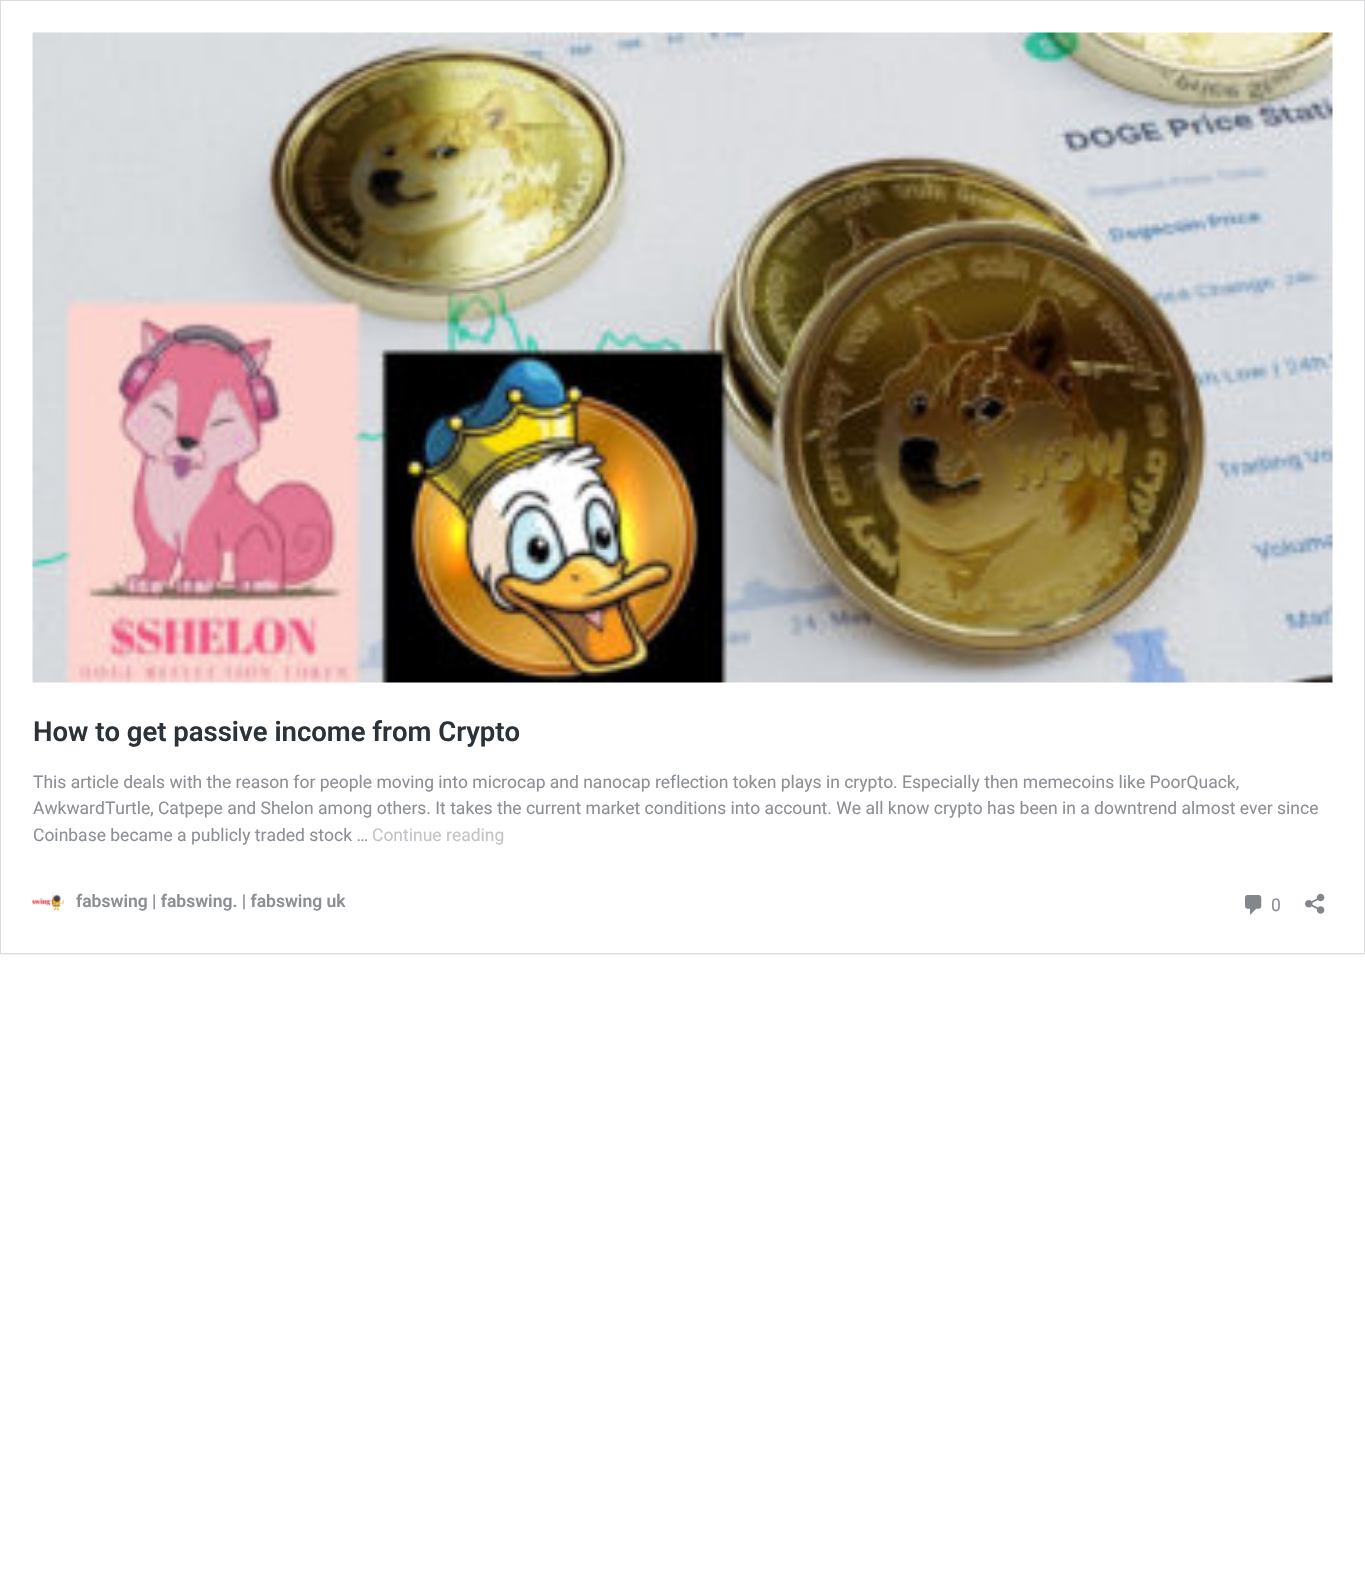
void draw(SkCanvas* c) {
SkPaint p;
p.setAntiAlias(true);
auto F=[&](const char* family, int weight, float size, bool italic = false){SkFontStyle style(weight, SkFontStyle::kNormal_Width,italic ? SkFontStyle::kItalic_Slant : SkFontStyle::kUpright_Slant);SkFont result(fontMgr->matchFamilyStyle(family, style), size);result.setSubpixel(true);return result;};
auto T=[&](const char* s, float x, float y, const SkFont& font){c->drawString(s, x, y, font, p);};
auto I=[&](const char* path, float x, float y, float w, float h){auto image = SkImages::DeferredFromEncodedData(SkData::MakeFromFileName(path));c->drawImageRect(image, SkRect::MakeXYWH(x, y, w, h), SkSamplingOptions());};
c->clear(0xffffffff);
p.setColor(0x0d000000);
p.setMaskFilter(SkMaskFilter::MakeBlur(kNormal_SkBlurStyle, .5));
c->drawRect(SkRect::MakeXYWH(0,1,1365,954),p);
p.setMaskFilter(nullptr);
p.setColor(0xffffffff);
c->drawRect(SkRect::MakeXYWH(.5,.5,1364,953),p);
p.setStroke(true);
p.setStrokeWidth(1);
p.setColor(0xffdcdcde);
c->drawRect(SkRect::MakeXYWH(.5,.5,1364,953),p);
I("1.png",32,32,1301,651);
auto f1 = F("Roboto",600,27.5);
p.setStroke(false);
p.setColor(0xff2c3338);
T("How to get passive income from Crypto",33,741,f1);
auto f2 = F("Roboto",400,17.5);
p.setColor(0xff8c8f94);
T("This article deals with the reason for people moving into microcap and nanocap reflection token plays in crypto. Especially then memecoins like PoorQuack,",33,788,f2);
T("AwkwardTurtle, Catpepe and Shelon among others. It takes the current market conditions into account. We all know crypto has been in a downtrend almost ever since",33,814,f2);
T("Coinbase became a publicly traded stock …",33,841,f2);
p.setColor(0xffc3c4c7);
T("Continue reading",372,841,f2);
I("2.png",32,893,32,18);
auto f3 = F("Roboto",600,17.5);
p.setColor(0xff8c8f94);
T("fabswing | fabswing. | fabswing uk",76,907,f3);
I("3.png",1245,895,17,20);
T("0",1271,911,f2);
I("4.png",1305,893,20,21);
}
